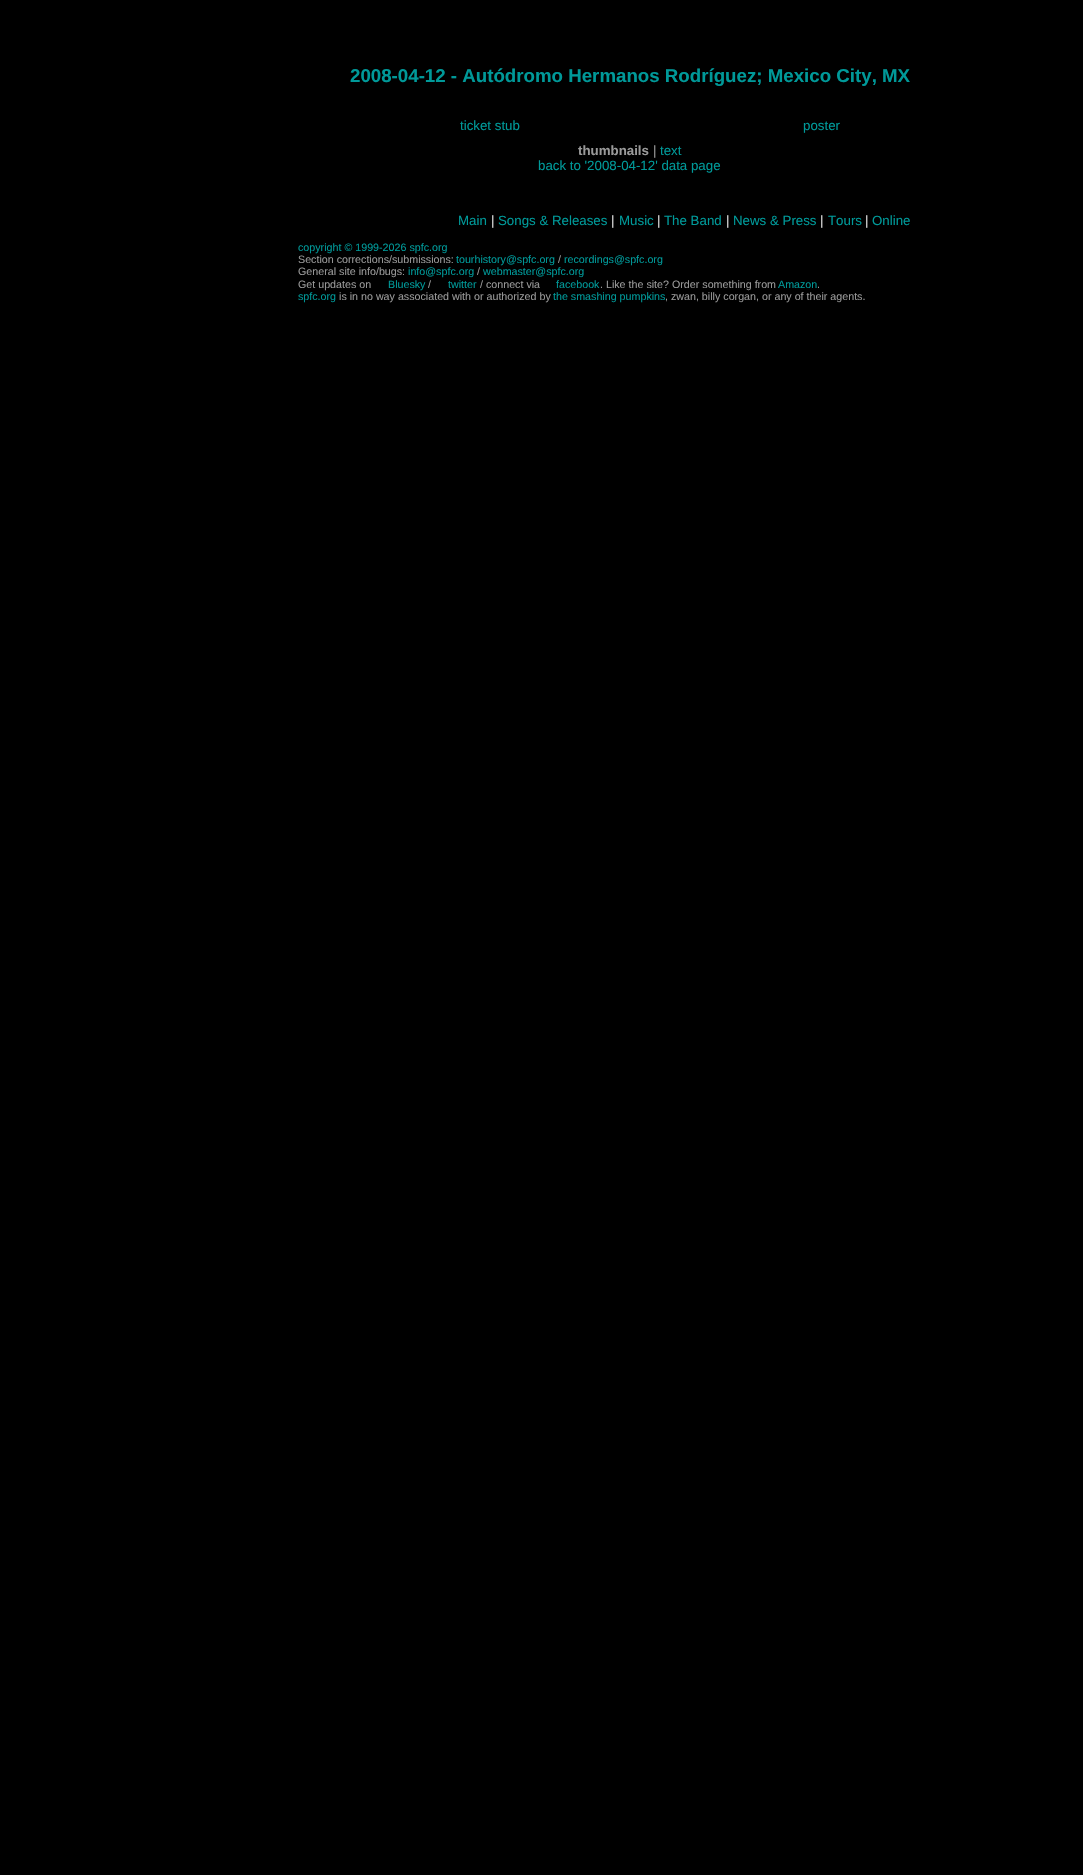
void draw(SkCanvas* c) {
SkPaint p;
p.setAntiAlias(true);
auto F=[&](const char* family, int weight, float size, bool italic = false){SkFontStyle style(weight, SkFontStyle::kNormal_Width,italic ? SkFontStyle::kItalic_Slant : SkFontStyle::kUpright_Slant);SkFont result(fontMgr->matchFamilyStyle(family, style), size);result.setSubpixel(true);return result;};
auto T=[&](const char* s, float x, float y, const SkFont& font){c->drawString(s, x, y, font, p);};
c->clear(0xff000000);
auto f1 = F("Liberation Sans",700,18.7);
p.setColor(0xff009999);
T("2008-04-12 - Autódromo Hermanos Rodríguez; Mexico City, MX",350,82,f1);
auto f2 = F("Liberation Sans",400,13.3);
T("ticket stub",460,130,f2);
T("poster",803,130,f2);
auto f3 = F("Liberation Sans",700,13.3);
p.setColor(0xff999999);
T("thumbnails",578,155,f3);
T("|",653,155,f2);
p.setColor(0xff009999);
T("text",660,155,f2);
T("back to '2008-04-12' data page",538,170,f2);
T("Main",458,225,f2);
p.setColor(0xffdddddd);
T("|",491,225,f2);
p.setColor(0xff009999);
T("Songs & Releases",498,225,f2);
p.setColor(0xffdddddd);
T("|",611,225,f2);
p.setColor(0xff009999);
T("Music",619,225,f2);
p.setColor(0xffdddddd);
T("|",657,225,f2);
p.setColor(0xff009999);
T("The Band",664,225,f2);
p.setColor(0xffdddddd);
T("|",726,225,f2);
p.setColor(0xff009999);
T("News & Press",733,225,f2);
p.setColor(0xffdddddd);
T("|",820,225,f2);
p.setColor(0xff009999);
T("Tours",828,225,f2);
p.setColor(0xffdddddd);
T("|",865,225,f2);
p.setColor(0xff009999);
T("Online",872,225,f2);
auto f4 = F("Liberation Sans",400,10.7);
T("copyright © 1999-2026 spfc.org",298,251,f4);
p.setColor(0xff999999);
T("Section corrections/submissions:",298,263,f4);
p.setColor(0xff009999);
T("tourhistory@spfc.org",456,263,f4);
p.setColor(0xff999999);
T("/",558,263,f4);
p.setColor(0xff009999);
T("recordings@spfc.org",564,263,f4);
p.setColor(0xff999999);
T("General site info/bugs:",298,275,f4);
p.setColor(0xff009999);
T("info@spfc.org",408,275,f4);
p.setColor(0xff999999);
T("/",477,275,f4);
p.setColor(0xff009999);
T("webmaster@spfc.org",483,275,f4);
p.setColor(0xff999999);
T("Get updates on",298,288,f4);
p.setColor(0xff009999);
T("Bluesky",388,288,f4);
p.setColor(0xff999999);
T("/",428,288,f4);
p.setColor(0xff009999);
T("twitter",448,288,f4);
p.setColor(0xff999999);
T("/ connect via",480,288,f4);
p.setColor(0xff009999);
T("facebook",556,288,f4);
p.setColor(0xff999999);
T(". Like the site? Order something from",600,288,f4);
p.setColor(0xff009999);
T("Amazon",778,288,f4);
p.setColor(0xff999999);
T(".",817,288,f4);
p.setColor(0xff009999);
T("spfc.org",298,300,f4);
p.setColor(0xff999999);
T("is in no way associated with or authorized by",339,300,f4);
p.setColor(0xff009999);
T("the smashing pumpkins",553,300,f4);
p.setColor(0xff999999);
T(", zwan, billy corgan, or any of their agents.",665,300,f4);
}
